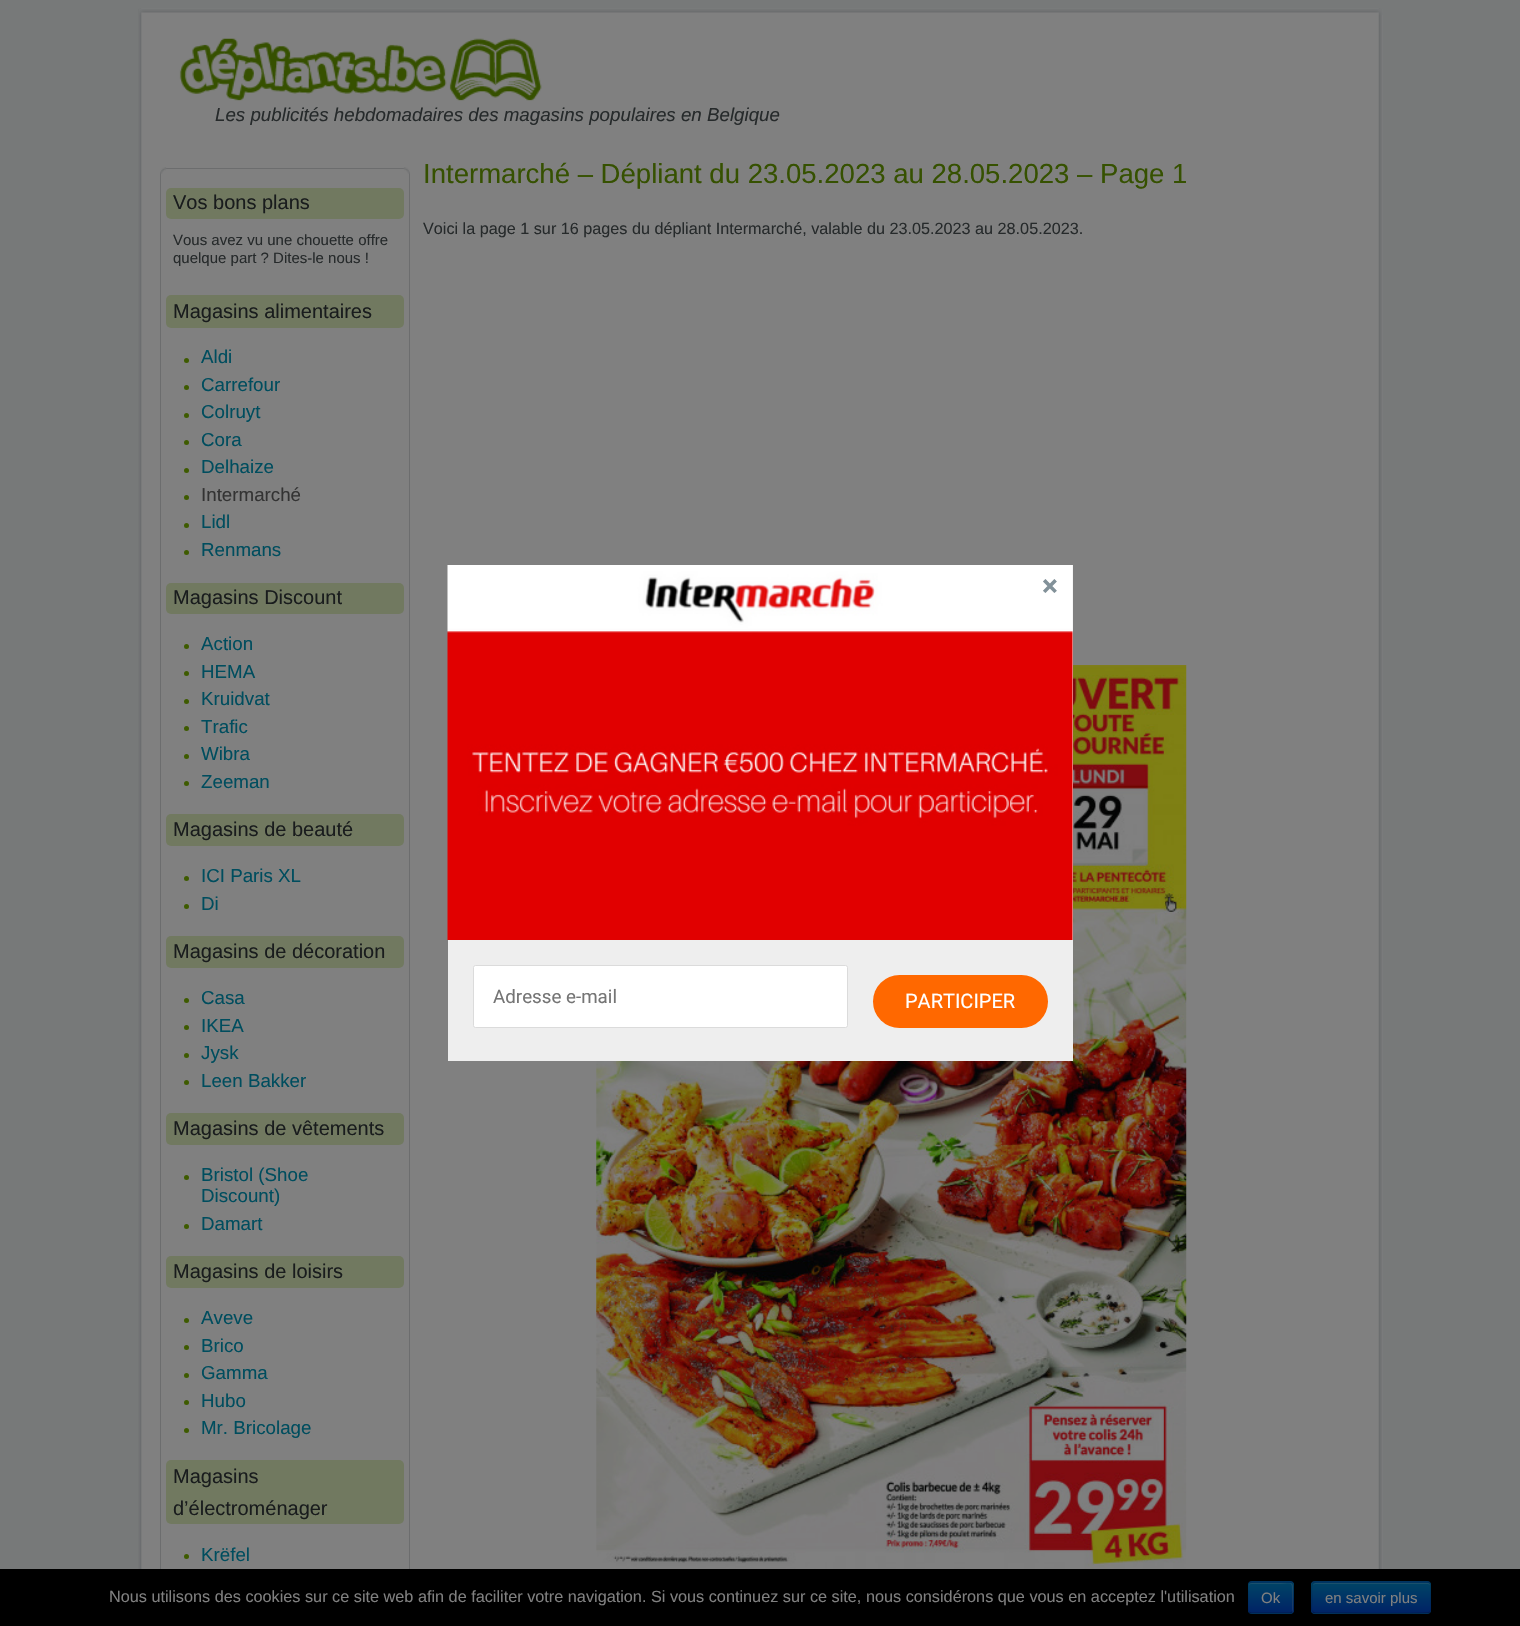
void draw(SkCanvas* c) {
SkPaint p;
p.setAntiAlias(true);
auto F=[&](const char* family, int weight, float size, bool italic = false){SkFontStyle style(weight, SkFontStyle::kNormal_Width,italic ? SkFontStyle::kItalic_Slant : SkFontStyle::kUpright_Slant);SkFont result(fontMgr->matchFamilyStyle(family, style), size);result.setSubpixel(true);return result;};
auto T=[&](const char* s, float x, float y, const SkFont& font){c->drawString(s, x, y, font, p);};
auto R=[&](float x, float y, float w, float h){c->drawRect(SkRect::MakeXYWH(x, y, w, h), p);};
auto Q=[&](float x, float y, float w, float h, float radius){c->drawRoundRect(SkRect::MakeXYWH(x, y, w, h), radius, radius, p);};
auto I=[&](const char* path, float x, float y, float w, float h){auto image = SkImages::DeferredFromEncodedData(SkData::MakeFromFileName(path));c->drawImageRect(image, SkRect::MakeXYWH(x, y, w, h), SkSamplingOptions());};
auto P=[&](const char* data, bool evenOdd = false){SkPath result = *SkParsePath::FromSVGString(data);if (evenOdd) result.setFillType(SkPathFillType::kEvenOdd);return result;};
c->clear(0xff777979);
p.setColor(0xff808080);
R(1382,9,1,1560);
I("1.png",138,8,1245,1561);
I("2.png",139,9,1244,6);
I("3.png",179,38,363,63);
auto f1 = F("Liberation Sans",400,18.75,true);
p.setColor(0xff262a2b);
T("Les publicités hebdomadaires des magasins populaires en Belgique",215,121,f1);
p.setStroke(true);
p.setStrokeWidth(1);
p.setColor(0xff6c6d6e);
c->drawRect(SkRect::MakeXYWH(160.5,168.5,249,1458),p);
I("4.png",160,167,7,7);
I("5.png",403,167,7,7);
p.setStroke(false);
p.setColor(0xff717960);
Q(166,188,238,31,5);
auto f2 = F("Liberation Sans",400,20);
p.setColor(0xff191c1d);
T("Vos bons plans",173,209,f2);
auto f3 = F("Liberation Sans",400,15);
p.setColor(0xff262a2b);
T("Vous avez vu une chouette offre",173,245,f3);
T("quelque part ? Dites-le nous !",173,263,f3);
p.setColor(0xff717960);
Q(166,295,238,33,5);
p.setColor(0xff191c1d);
T("Magasins alimentaires",173,318,f2);
p.setColor(0xff3e5b00);
c->drawCircle(186.5,360.5,2.5,p);
auto f4 = F("Liberation Sans",400,18.75);
p.setColor(0xff004d5e);
T("Aldi",201,363,f4);
p.setColor(0xff3e5b00);
c->drawCircle(186.5,387.5,2.5,p);
p.setColor(0xff004d5e);
T("Carrefour",201,391,f4);
p.setColor(0xff3e5b00);
c->drawCircle(186.5,415.5,2.5,p);
p.setColor(0xff004d5e);
T("Colruyt",201,418,f4);
p.setColor(0xff3e5b00);
c->drawCircle(186.5,442.5,2.5,p);
p.setColor(0xff004d5e);
T("Cora",201,446,f4);
p.setColor(0xff3e5b00);
c->drawCircle(186.5,470.5,2.5,p);
p.setColor(0xff004d5e);
T("Delhaize",201,473,f4);
p.setColor(0xff3e5b00);
c->drawCircle(186.5,497.5,2.5,p);
p.setColor(0xff333333);
T("Intermarché",201,501,f4);
p.setColor(0xff3e5b00);
c->drawCircle(186.5,525.5,2.5,p);
p.setColor(0xff004d5e);
T("Lidl",201,528,f4);
p.setColor(0xff3e5b00);
c->drawCircle(186.5,552.5,2.5,p);
p.setColor(0xff004d5e);
T("Renmans",201,556,f4);
p.setColor(0xff717960);
Q(166,583,238,31,5);
p.setColor(0xff191c1d);
T("Magasins Discount",173,604,f2);
p.setColor(0xff3e5b00);
c->drawCircle(186.5,646.5,2.5,p);
p.setColor(0xff004d5e);
T("Action",201,650,f4);
p.setColor(0xff3e5b00);
c->drawCircle(186.5,673.5,2.5,p);
p.setColor(0xff004d5e);
T("HEMA",201,678,f4);
p.setColor(0xff3e5b00);
c->drawCircle(186.5,701.5,2.5,p);
p.setColor(0xff004d5e);
T("Kruidvat",201,705,f4);
p.setColor(0xff3e5b00);
c->drawCircle(186.5,728.5,2.5,p);
p.setColor(0xff004d5e);
T("Trafic",201,733,f4);
p.setColor(0xff3e5b00);
c->drawCircle(186.5,756.5,2.5,p);
p.setColor(0xff004d5e);
T("Wibra",201,760,f4);
p.setColor(0xff3e5b00);
c->drawCircle(186.5,783.5,2.5,p);
p.setColor(0xff004d5e);
T("Zeeman",201,788,f4);
p.setColor(0xff717960);
Q(166,814,238,32,5);
p.setColor(0xff191c1d);
T("Magasins de beauté",173,836,f2);
p.setColor(0xff3e5b00);
c->drawCircle(186.5,878.5,2.5,p);
p.setColor(0xff004d5e);
T("ICI Paris XL",201,882,f4);
p.setColor(0xff3e5b00);
c->drawCircle(186.5,906.5,2.5,p);
p.setColor(0xff004d5e);
T("Di",201,910,f4);
p.setColor(0xff717960);
Q(166,936,238,32,5);
p.setColor(0xff191c1d);
T("Magasins de décoration",173,958,f2);
p.setColor(0xff3e5b00);
c->drawCircle(186.5,1000.5,2.5,p);
p.setColor(0xff004d5e);
T("Casa",201,1004,f4);
p.setColor(0xff3e5b00);
c->drawCircle(186.5,1027.5,2.5,p);
p.setColor(0xff004d5e);
T("IKEA",201,1032,f4);
p.setColor(0xff3e5b00);
c->drawCircle(186.5,1055.5,2.5,p);
p.setColor(0xff004d5e);
T("Jysk",201,1059,f4);
p.setColor(0xff3e5b00);
c->drawCircle(186.5,1082.5,2.5,p);
p.setColor(0xff004d5e);
T("Leen Bakker",201,1087,f4);
p.setColor(0xff717960);
Q(166,1113,238,32,5);
p.setColor(0xff191c1d);
T("Magasins de vêtements",173,1135,f2);
p.setColor(0xff3e5b00);
c->drawCircle(186.5,1177.5,2.5,p);
p.setColor(0xff004d5e);
T("Bristol (Shoe",201,1181,f4);
T("Discount)",201,1202,f4);
p.setColor(0xff3e5b00);
c->drawCircle(186.5,1226.5,2.5,p);
p.setColor(0xff004d5e);
T("Damart",201,1230,f4);
p.setColor(0xff717960);
Q(166,1256,238,32,5);
p.setColor(0xff191c1d);
T("Magasins de loisirs",173,1278,f2);
p.setColor(0xff3e5b00);
c->drawCircle(186.5,1320.5,2.5,p);
p.setColor(0xff004d5e);
T("Aveve",201,1324,f4);
p.setColor(0xff3e5b00);
c->drawCircle(186.5,1347.5,2.5,p);
p.setColor(0xff004d5e);
T("Brico",201,1352,f4);
p.setColor(0xff3e5b00);
c->drawCircle(186.5,1375.5,2.5,p);
p.setColor(0xff004d5e);
T("Gamma",201,1379,f4);
p.setColor(0xff3e5b00);
c->drawCircle(186.5,1402.5,2.5,p);
p.setColor(0xff004d5e);
T("Hubo",201,1407,f4);
p.setColor(0xff3e5b00);
c->drawCircle(186.5,1430.5,2.5,p);
p.setColor(0xff004d5e);
T("Mr. Bricolage",201,1434,f4);
p.setColor(0xff717960);
Q(166,1460,238,64,5);
p.setColor(0xff191c1d);
T("Magasins",173,1483,f2);
T("d’électroménager",173,1515,f2);
p.setColor(0xff3e5b00);
c->drawCircle(186.5,1556.5,2.5,p);
p.setColor(0xff004d5e);
T("Krëfel",201,1561,f4);
auto f5 = F("Liberation Sans",400,27.55);
p.setColor(0xff365101);
T("Intermarché – Dépliant du 23.05.2023 au 28.05.2023 – Page 1",423,183,f5);
auto f6 = F("Liberation Sans",400,16.2);
p.setColor(0xff262a2b);
T("Voici la page 1 sur 16 pages du dépliant Intermarché, valable du 23.05.2023 au 28.05.2023.",423,234,f6);
I("6.png",596,665,591,904);
p.setColor(0xffeeeeee);
R(448,565,625,496);
I("7.png",447,565,626,375);
auto f7 = F("Roboto",700,30);
p.setColor(0xff829199);
T("×",1042,596,f7);
p.setColor(0xffffffff);
c->drawRoundRect(SkRect::MakeXYWH(473.5,965.5,374,62),2,2,p);
p.setStroke(true);
p.setColor(0xffdbdbdb);
c->drawRoundRect(SkRect::MakeXYWH(473.5,965.5,374,62),2,2,p);
auto f8 = F("Roboto",400,18.75);
p.setStroke(false);
p.setColor(0xff757575);
T("Adresse e-mail",493,1003,f8);
p.setColor(0xffff6800);
Q(873,975,175,53,26.5);
auto f9 = F("Roboto",400,20);
p.setColor(0xffffffff);
T("PARTICIPER",905,1008,f9);
p.setColor(0xff000000);
R(0,1569,1520,57);
auto f10 = F("Liberation Sans",400,16.25);
p.setColor(0xff808080);
T("Nous utilisons des cookies sur ce site web afin de faciliter votre navigation. Si vous continuez sur ce site, nous considérons que vous en acceptez l'utilisation",109,1602,f10);
p.setColor(0xff003766);
Q(1248,1581,46,33,4);
c->save();
c->clipPath(P("M1252 1581h38c2 0 4 2 4 4v25c0 2-2 4-4 4h-38c-2 0-4-2-4-4v-25c0-2 2-4 4-4z"),true);
{
const SkColor colors[] = {0xff004466,0xff002266};
const float stops[] = {0,1};
const SkPoint ends[] = {{1271,1583}, {1271,1613}};
p.setShader(SkGradientShader::MakeLinear(ends, colors, stops, 2, SkTileMode::kClamp));
p.setAlpha(255);
}
R(1248,1583,46,30);
c->restore();
p.setShader(nullptr);
p.setColor(0x33808080);
c->drawPath(P("M1251 1584h26c16 0 15-4 15 10v19c0-1 1-2 1-3v-24c0-2-1-3-3-3h-38c-2 0-3 1-3 3c0-1 1-2 2-2z"),p);
p.setStroke(true);
p.setStrokeWidth(1.2);
p.setColor(0x40000000);
c->drawPath(P("M1292 1612l-2 1h-39l-2-1"),p);
p.setColor(0x1a000000);
c->drawPath(P("M1249 1612c-2-2-1-11.5-1-14.5c0-14.5-3.5-15.5 9.5-15.5h26c13 0 9.5 1 9.5 15.5c0 3 1.5 12.5-1 14.5"),p);
p.setStroke(false);
p.setColor(0xff808080);
T("Ok",1261,1603,f3);
p.setColor(0xff003766);
Q(1311,1581,120,33,4);
c->save();
c->clipPath(P("M1315 1581h112c2 0 4 2 4 4v25c0 2-2 4-4 4h-112c-2 0-4-2-4-4v-25c0-2 2-4 4-4z"),true);
{
const SkColor colors[] = {0xff004466,0xff002266};
const float stops[] = {0,1};
const SkPoint ends[] = {{1371,1583}, {1371,1613}};
p.setShader(SkGradientShader::MakeLinear(ends, colors, stops, 2, SkTileMode::kClamp));
p.setAlpha(255);
}
R(1311,1583,120,30);
c->restore();
p.setShader(nullptr);
p.setColor(0xff1a506b);
c->drawPath(P("M1315 1584h113c1 0 2 1 2 2c0-2-1-3-2-3h-112c-2 0-2 1-3 2z"),p);
p.setStroke(true);
p.setColor(0x40000000);
c->drawPath(P("M1429.5 1612l-.5 .5c-2 1.5-85.5 .5-95 .5h-19l-2-1"),p);
p.setColor(0x1a000000);
c->drawPath(P("M1313 1612c-2.5-2-1-8-1-10.5c0-24-4.5-19.5 22-19.5h75c26 0 21.5-4.5 21.5 19.5c0 2.5 1.5 8.5-1 10.5"),p);
p.setStroke(false);
p.setColor(0xff808080);
T("en savoir plus",1325,1603,f3);
}
